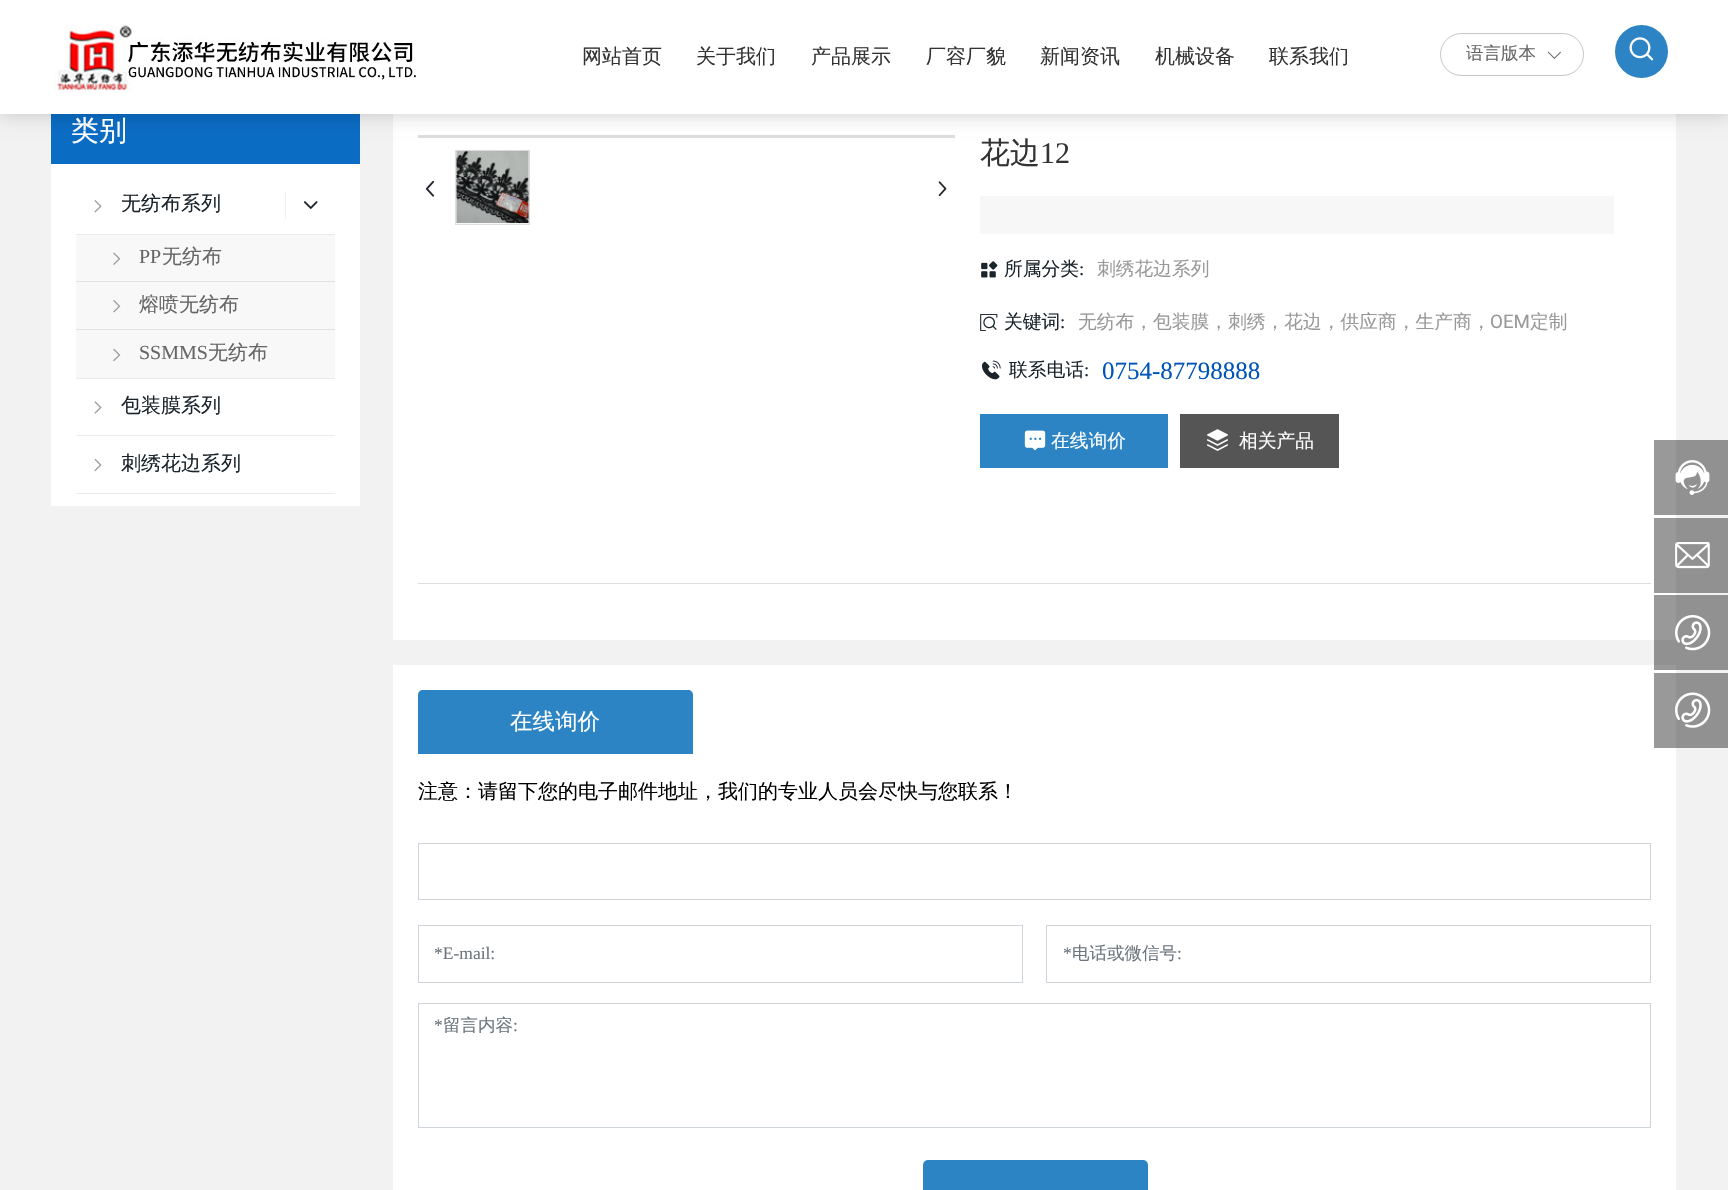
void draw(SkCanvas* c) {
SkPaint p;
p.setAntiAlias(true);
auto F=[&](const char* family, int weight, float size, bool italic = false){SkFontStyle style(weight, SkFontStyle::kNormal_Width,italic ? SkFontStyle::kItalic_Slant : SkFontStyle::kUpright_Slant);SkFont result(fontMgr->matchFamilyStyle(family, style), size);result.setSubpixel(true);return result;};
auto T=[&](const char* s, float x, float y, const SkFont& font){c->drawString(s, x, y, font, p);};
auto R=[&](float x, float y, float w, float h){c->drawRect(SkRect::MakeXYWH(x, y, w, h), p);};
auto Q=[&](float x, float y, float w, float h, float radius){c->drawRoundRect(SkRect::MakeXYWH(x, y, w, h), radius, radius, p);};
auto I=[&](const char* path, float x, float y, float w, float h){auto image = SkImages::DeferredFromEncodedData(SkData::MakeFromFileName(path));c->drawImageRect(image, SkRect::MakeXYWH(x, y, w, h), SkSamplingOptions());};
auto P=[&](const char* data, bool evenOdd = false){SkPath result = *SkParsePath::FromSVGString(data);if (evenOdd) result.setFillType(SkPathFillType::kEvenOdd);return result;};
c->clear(0xfff2f2f2);
p.setColor(0xff0b6cc4);
R(51,114,309,50);
p.setColor(0xff919191);
R(1654,595,74,75);
p.setColor(0xffffffff);
R(393,114,1283,526);
p.setColor(0xffdddddd);
R(418,135,537,3);
p.setColor(0x33000000);
p.setMaskFilter(SkMaskFilter::MakeBlur(kNormal_SkBlurStyle, 9.5));
c->drawRect(SkRect::MakeXYWH(0,0,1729,114),p);
p.setMaskFilter(nullptr);
p.setColor(0xffffffff);
R(0,0,1728,114);
I("1.png",54,25,363,68);
auto f1 = F("WenQuanYi Zen Hei",500,20);
p.setColor(0xff333333);
T("网站首页",582,63,f1);
T("关于我们",696,63,f1);
T("产品展示",811,63,f1);
T("厂容厂貌",926,63,f1);
T("新闻资讯",1040,63,f1);
T("机械设备",1155,63,f1);
T("联系我们",1269,63,f1);
p.setStroke(true);
p.setStrokeWidth(1);
p.setColor(0xffc5c5c5);
c->drawRoundRect(SkRect::MakeXYWH(1440.5,33.5,143,42),21,21,p);
auto f2 = F("WenQuanYi Zen Hei",500,17.5);
p.setStroke(false);
p.setColor(0xff666666);
T("语言版本",1466,59,f2);
I("2.png",1547,51,14,8);
p.setColor(0xff2c84c4);
c->drawCircle(1641.5,51.5,26.5,p);
I("3.png",1629,37,25,24);
p.setColor(0xff919191);
R(1676,673,52,75);
R(1676,518,52,75);
R(1676,440,52,75);
p.setColor(0xffffffff);
R(51,164,309,342);
auto f3 = F("WenQuanYi Zen Hei",500,28);
T("类别",71,140,f3);
p.setColor(0xffebebeb);
R(76,234,259,1);
I("4.png",94,200,8,13);
p.setColor(0xff1b242b);
T("无纺布系列",121,210,f1);
p.setColor(0xfff2f2f2);
R(285,191,1,28);
I("5.png",304,201,14,8);
p.setColor(0xfff8f8f8);
R(76,235,259,94);
p.setColor(0xffe1e1e1);
R(76,281,259,1);
I("6.png",113,252,8,13);
auto f4 = F("Liberation Serif",400,20);
p.setColor(0xff666666);
T("PP",139,263,f4);
T("无纺布",162,263,f1);
p.setColor(0xffe1e1e1);
R(76,329,259,1);
I("7.png",113,300,8,13);
p.setColor(0xff666666);
T("熔喷无纺布",139,311,f1);
p.setColor(0xfff8f8f8);
R(76,330,259,48);
p.setColor(0xffebebeb);
R(76,378,259,1);
I("8.png",113,348,8,14);
p.setColor(0xff666666);
T("SSMMS",139,359,f4);
T("无纺布",208,359,f1);
p.setColor(0xffebebeb);
R(76,435,259,1);
I("9.png",94,401,8,13);
p.setColor(0xff1b242b);
T("包装膜系列",121,412,f1);
p.setColor(0xffebebeb);
R(76,493,259,1);
I("10.png",94,458,8,14);
p.setColor(0xff1b242b);
T("刺绣花边系列",121,470,f1);
p.setColor(0xff999999);
R(1654,595,22,45);
R(1654,518,22,75);
R(1654,440,22,75);
p.setStroke(true);
p.setColor(0xffdddddd);
c->drawRect(SkRect::MakeXYWH(455.5,150.5,74,74),p);
I("11.png",456,150,73,74);
I("12.png",425,180,10,17);
I("13.png",938,181,9,16);
auto f5 = F("WenQuanYi Zen Hei",500,30);
p.setStroke(false);
p.setColor(0xff333333);
T("花边",980,163,f5);
auto f6 = F("Liberation Serif",400,30);
T("12",1040,163,f6);
p.setColor(0xfff7f7f7);
R(980,196,634,38);
I("14.png",981,261,17,17);
auto f7 = F("WenQuanYi Zen Hei",500,18.75);
p.setColor(0xff1b242b);
T("所属分类",1004,275,f7);
auto f8 = F("Liberation Serif",400,18.75);
T(":",1079,275,f8);
p.setColor(0xff999999);
T("刺绣花边系列",1097,275,f7);
I("15.png",980,314,18,17);
p.setColor(0xff1b242b);
T("关键词",1004,328,f7);
T(":",1060,328,f8);
p.setColor(0xff999999);
T("无纺布，包装膜，刺绣，花边，供应商，生产商，",1078,328,f7);
auto f9 = F("Roboto",400,18.75);
T("OEM",1490,328,f9);
T("定制",1530,328,f7);
I("16.png",981,360,20,20);
p.setColor(0xff1b242b);
T("联系电话",1009,376,f7);
T(":",1084,376,f8);
auto f10 = F("Liberation Serif",400,25);
p.setColor(0xff0054b7);
T("0754-87798888",1102,379,f10);
p.setColor(0xff2c84c4);
R(980,414,188,54);
I("17.png",1024,430,22,21);
p.setColor(0xffffffff);
T("在线询价",1051,447,f7);
p.setColor(0xff555555);
R(1180,414,159,54);
I("18.png",1207,429,21,22);
p.setColor(0xffffffff);
T("相关产品",1239,447,f7);
p.setColor(0xffdddddd);
R(418,583,1233,1);
p.setColor(0xffffffff);
R(393,665,1283,525);
p.setColor(0xff999999);
R(1654,673,22,75);
R(1654,665,22,5);
p.setColor(0xff2c84c4);
c->drawPath(P("M423 690h265c3 0 5 2 5 5v59h-275v-59c0-3 2-5 5-5z"),p);
auto f11 = F("WenQuanYi Zen Hei",500,22.5);
p.setColor(0xffffffff);
T("在线询价",510,729,f11);
p.setColor(0xff000000);
T("注意：请留下您的电子邮件地址，我们的专业人员会尽快与您联系！",418,798,f1);
p.setStroke(true);
p.setColor(0xffced4da);
c->drawRect(SkRect::MakeXYWH(418.5,843.5,1232,56),p);
c->drawRect(SkRect::MakeXYWH(418.5,925.5,604,57),p);
auto f12 = F("Liberation Serif",400,17.5);
p.setStroke(false);
p.setColor(0xff6c757d);
T("*E-mail:",434,959,f12);
p.setStroke(true);
p.setColor(0xffced4da);
c->drawRect(SkRect::MakeXYWH(1046.5,925.5,604,57),p);
p.setStroke(false);
p.setColor(0xff6c757d);
T("*",1063,959,f12);
T("电话或微信号",1072,959,f2);
T(":",1177,959,f12);
p.setStroke(true);
p.setColor(0xffced4da);
c->drawRect(SkRect::MakeXYWH(418.5,1003.5,1232,124),p);
p.setStroke(false);
p.setColor(0xff6c757d);
T("*",434,1031,f12);
T("留言内容",443,1031,f2);
T(":",513,1031,f12);
p.setColor(0xff2c84c4);
Q(923,1160,225,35,5);
I("19.png",1675,460,35,35);
I("20.png",1675,542,35,27);
I("21.png",1675,615,36,36);
I("22.png",1675,692,36,36);
}
